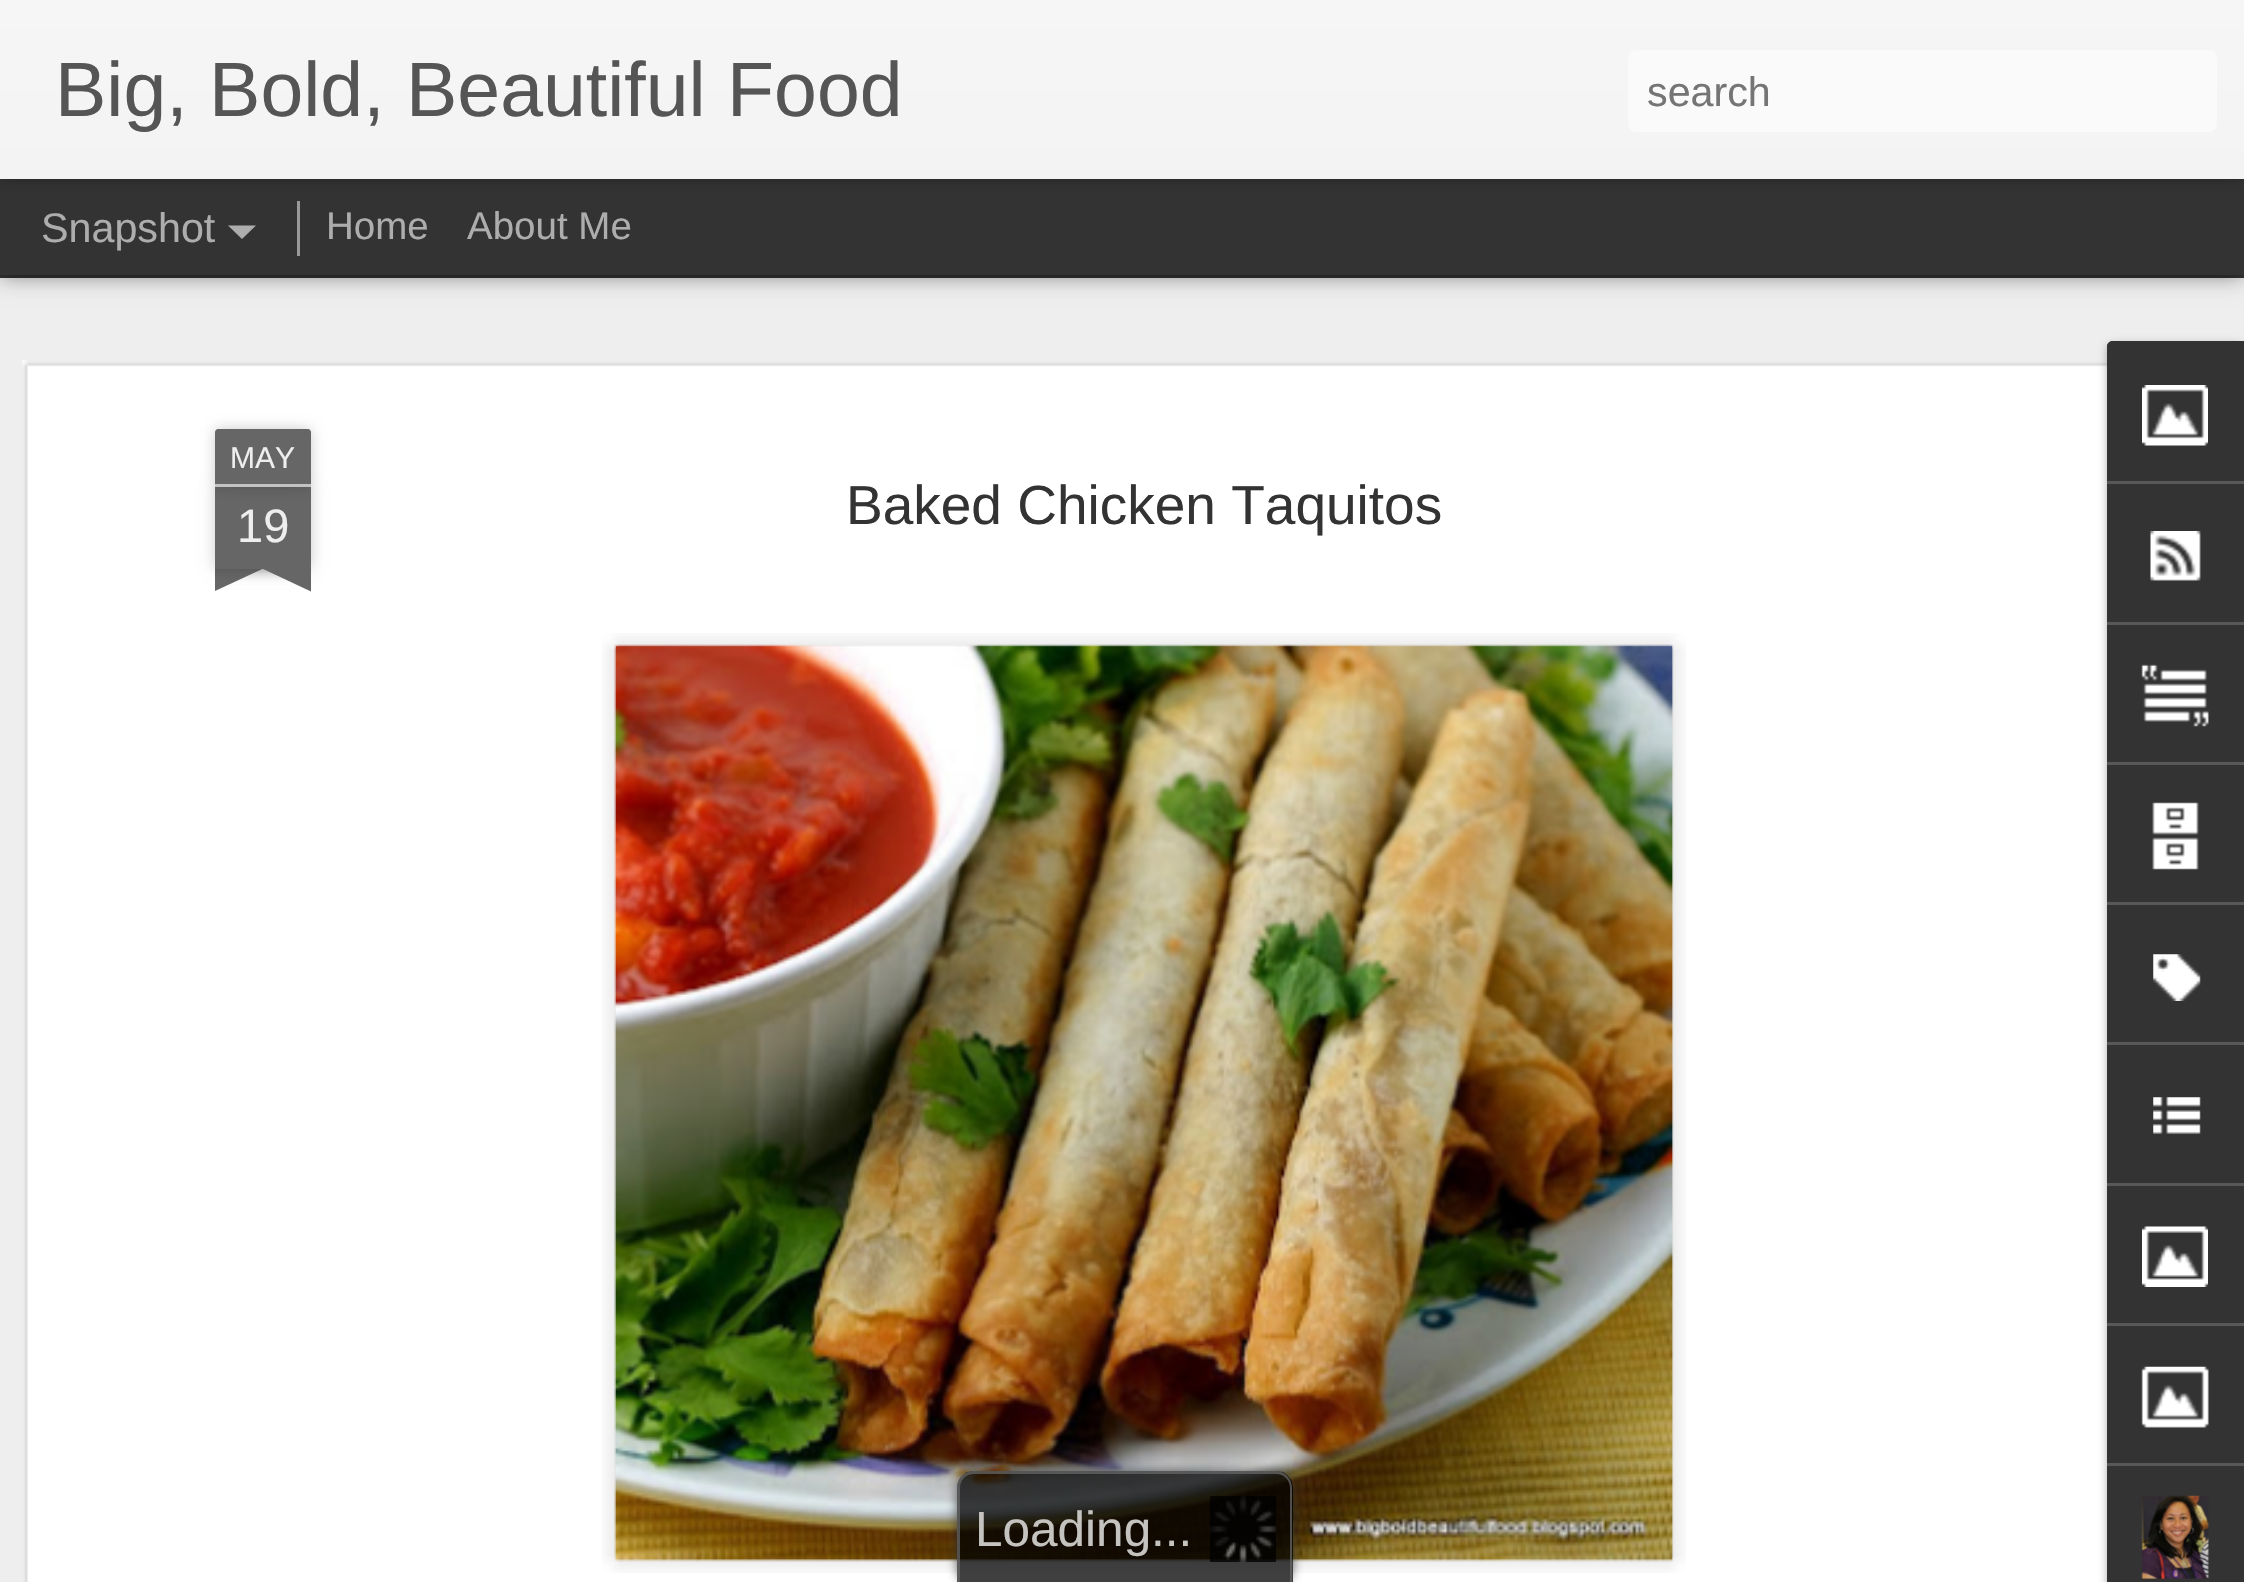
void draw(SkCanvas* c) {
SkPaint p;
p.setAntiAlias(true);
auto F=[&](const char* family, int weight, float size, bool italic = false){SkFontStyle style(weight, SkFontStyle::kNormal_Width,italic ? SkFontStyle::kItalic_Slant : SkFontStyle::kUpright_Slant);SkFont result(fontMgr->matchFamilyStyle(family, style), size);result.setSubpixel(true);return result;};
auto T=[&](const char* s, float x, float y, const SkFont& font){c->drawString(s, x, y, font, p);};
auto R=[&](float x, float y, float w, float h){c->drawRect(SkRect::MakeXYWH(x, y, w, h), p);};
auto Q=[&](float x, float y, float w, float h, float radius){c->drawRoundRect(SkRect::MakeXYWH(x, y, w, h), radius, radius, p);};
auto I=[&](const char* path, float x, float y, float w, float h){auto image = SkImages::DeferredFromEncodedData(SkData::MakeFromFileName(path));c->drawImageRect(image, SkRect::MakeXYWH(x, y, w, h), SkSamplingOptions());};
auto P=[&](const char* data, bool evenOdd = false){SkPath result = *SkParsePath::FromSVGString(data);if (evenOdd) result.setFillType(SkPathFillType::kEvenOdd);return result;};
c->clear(0xff333333);
p.setColor(0xffeeeeee);
R(0,278,2244,1304);
p.setColor(0x80000000);
p.setMaskFilter(SkMaskFilter::MakeBlur(kNormal_SkBlurStyle, 11));
c->drawRect(SkRect::MakeXYWH(0,179,2244,96),p);
p.setMaskFilter(nullptr);
p.setColor(0xff333333);
R(0,179,2244,96);
p.setColor(0x4d000000);
p.setMaskFilter(SkMaskFilter::MakeBlur(kNormal_SkBlurStyle, 7));
c->drawRect(SkRect::MakeXYWH(0,0,2244,179),p);
p.setMaskFilter(nullptr);
{
const SkColor colors[] = {0xfff6f6f6,0xfff3f3f3};
const float stops[] = {0,1};
const SkPoint ends[] = {{0,0}, {0,179}};
p.setShader(SkGradientShader::MakeLinear(ends, colors, stops, 2, SkTileMode::kClamp));
p.setAlpha(255);
}
R(0,0,2244,179);
auto f1 = F("Liberation Sans",400,77);
p.setShader(nullptr);
p.setColor(0xff555555);
T("Big, Bold, Beautiful Food",55,116,f1);
p.setColor(0xfffafafa);
Q(1628,50,589,82,8);
auto f2 = F("Liberation Sans",400,41.25);
p.setColor(0xff757575);
T("search",1647,106,f2);
p.setColor(0xffadadad);
T("Snapshot",41,242,f2);
c->drawPath(P("M228 225.5h28l-14 13.5z"),p);
p.setColor(0xff999999);
R(297,201,3,55);
auto f3 = F("Liberation Sans",400,38.5);
p.setColor(0xffadadad);
T("Home",326,239,f3);
T("About Me",467,239,f3);
p.setColor(0xffffffff);
R(22,360,2085,1222);
I("1.png",22,360,2085,1222);
p.setColor(0x33000000);
p.setMaskFilter(SkMaskFilter::MakeBlur(kNormal_SkBlurStyle, 7));
c->drawRect(SkRect::MakeXYWH(215,487,96,82),p);
p.setMaskFilter(nullptr);
p.setColor(0xff666666);
R(215,487,96,82);
p.setColor(0x33000000);
p.setMaskFilter(SkMaskFilter::MakeBlur(kNormal_SkBlurStyle, 7));
c->drawRoundRect(SkRect::MakeXYWH(215,429,96,58),3,3,p);
p.setMaskFilter(nullptr);
p.setColor(0xff666666);
c->drawPath(P("M218 429h90c1.5 0 3 1.5 3 3v55h-96v-55c0-1.5 1.5-3 3-3z"),p);
p.setColor(0xffc2c2c2);
R(215,484,96,3);
auto f4 = F("Liberation Sans",400,30);
p.setColor(0xffeeeeee);
T("MAY",230,468,f4);
auto f5 = F("Liberation Sans",400,47);
T("19",237,542,f5);
c->save();
c->clipRect(SkRect::MakeXYWH(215,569,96,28));
p.setColor(0x33000000);
p.setMaskFilter(SkMaskFilter::MakeBlur(kNormal_SkBlurStyle, 7));
c->drawRect(SkRect::MakeXYWH(190,542,137,27),p);
p.setMaskFilter(nullptr);
c->restore();
c->save();
c->clipRect(SkRect::MakeXYWH(215,569,96,28));
p.setColor(0xff666666);
c->drawPath(P("M190 572l125-58l12 25l-125 58z"),p);
c->restore();
c->save();
c->clipRect(SkRect::MakeXYWH(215,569,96,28));
p.setColor(0x33000000);
p.setMaskFilter(SkMaskFilter::MakeBlur(kNormal_SkBlurStyle, 7));
c->drawRect(SkRect::MakeXYWH(198,542,138,27),p);
p.setMaskFilter(nullptr);
c->restore();
c->save();
c->clipRect(SkRect::MakeXYWH(215,569,96,28));
p.setColor(0xff666666);
c->drawPath(P("M210 514l125 58l-12 25l-124-58z"),p);
c->restore();
auto f6 = F("Liberation Sans",400,55);
p.setColor(0xff333333);
T("Baked Chicken Taquitos",846,524,f6);
I("2.png",602,633,1084,940);
I("3.png",614,644,1060,918);
p.setColor(0x4d000000);
p.setMaskFilter(SkMaskFilter::MakeBlur(kNormal_SkBlurStyle, 4));
c->drawRoundRect(SkRect::MakeXYWH(2107,344,137,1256),6,6,p);
p.setMaskFilter(nullptr);
p.setColor(0xff333333);
c->drawPath(P("M2113 341h131v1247h-131c-3.5 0-6-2.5-6-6v-1235c0-3.5 2.5-6 6-6z"),p);
c->drawPath(P("M2113 341h131v140h-137v-134c0-3.5 2.5-6 6-6z"),p);
I("4.png",2142,385,66,61);
p.setColor(0xff585858);
R(2107,481,137,3);
I("5.png",2150,531,51,50);
R(2107,622,137,3);
I("6.png",2141,664,68,63);
R(2107,762,137,3);
I("7.png",2152,802,47,68);
R(2107,902,137,3);
I("8.png",2153,954,48,47);
R(2107,1042,137,3);
I("9.png",2153,1097,48,37);
R(2107,1183,137,3);
I("10.png",2142,1226,66,61);
R(2107,1323,137,3);
I("11.png",2141,1366,68,62);
R(2107,1463,137,3);
I("12.png",2141,1495,68,84);
c->save();
c->clipPath(P("M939 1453h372v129h-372zm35 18h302c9.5 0 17 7.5 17 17v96h-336v-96c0-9.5 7.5-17 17-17z",true),true);
p.setColor(0xbf333333);
p.setMaskFilter(SkMaskFilter::MakeBlur(kNormal_SkBlurStyle, 5.5));
c->drawRoundRect(SkRect::MakeXYWH(957,1471,336,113),17,17,p);
p.setMaskFilter(nullptr);
c->restore();
p.setColor(0xbf000000);
c->drawPath(P("M974 1471h302c9.5 0 17 7.5 17 17v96h-336v-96c0-9.5 7.5-17 17-17z"),p);
p.setColor(0xbf666666);
c->drawPath(P("M974 1471h302c9 0 16 8 16 17v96h-335v-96c0-9 7-17 17-17zm0 3h302c8 0 14 6 14 14v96h-330v-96c0-8 6-14 14-14z",true),p);
I("13.png",1210,1496,66,66);
auto f7 = F("Liberation Sans",400,49.5);
p.setColor(0xffc5c3c0);
T("Loading",975,1546,f7);
T("...",1151,1546,f7);
}
